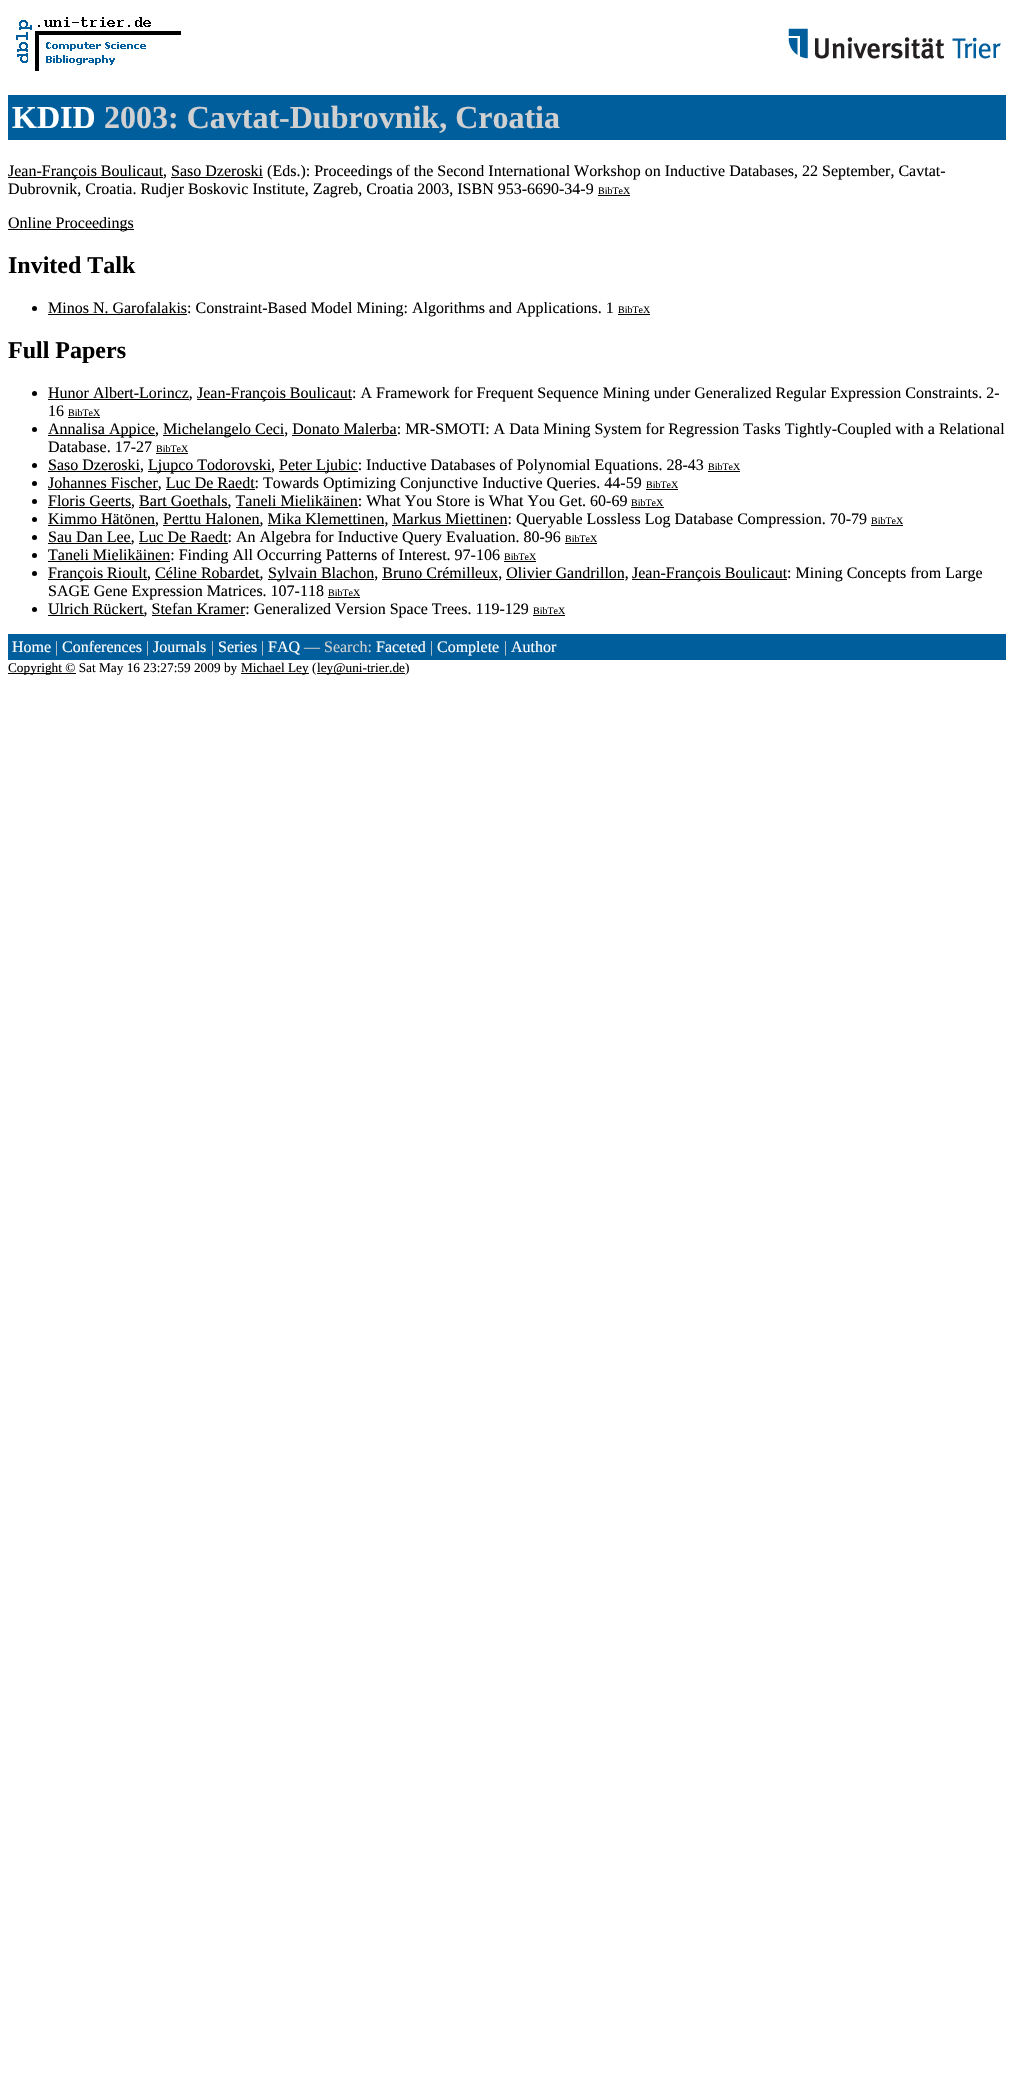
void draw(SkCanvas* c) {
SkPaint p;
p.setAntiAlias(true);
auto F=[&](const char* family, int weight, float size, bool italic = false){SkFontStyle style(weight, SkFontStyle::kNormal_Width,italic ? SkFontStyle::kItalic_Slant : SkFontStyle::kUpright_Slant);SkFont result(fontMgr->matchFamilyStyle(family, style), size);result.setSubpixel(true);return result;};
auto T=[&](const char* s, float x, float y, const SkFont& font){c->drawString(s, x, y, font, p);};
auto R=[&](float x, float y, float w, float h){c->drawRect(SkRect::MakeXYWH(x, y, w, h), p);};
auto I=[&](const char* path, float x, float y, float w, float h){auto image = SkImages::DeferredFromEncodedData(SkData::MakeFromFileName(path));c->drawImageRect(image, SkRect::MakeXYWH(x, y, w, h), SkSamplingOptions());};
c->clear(0xffffffff);
I("1.png",16,17,165,54);
I("2.png",788,24,213,35);
p.setColor(0xff005e9c);
R(8,95,998,45);
auto f1 = F("Liberation Serif",700,32);
p.setColor(0xffffffff);
T("KDID",12,128,f1);
p.setColor(0xffd0d0d0);
T("2003: Cavtat-Dubrovnik, Croatia",104,128,f1);
p.setColor(0xff000000);
R(8,177,155,1);
auto f2 = F("Liberation Serif",400,16);
T("Jean-François Boulicaut, Saso Dzeroski (Eds.): Proceedings of the Second International Workshop on Inductive Databases, 22 September, Cavtat-",8,176,f2);
R(171,177,92,1);
T("Dubrovnik, Croatia. Rudjer Boskovic Institute, Zagreb, Croatia 2003, ISBN 953-6690-34-9",8,194,f2);
auto f3 = F("Liberation Serif",400,10);
T("BibTeX",598,194,f3);
R(598,195,32,1);
R(8,229,126,1);
T("Online Proceedings",8,228,f2);
auto f4 = F("Liberation Serif",700,24);
T("Invited Talk",8,273,f4);
c->drawCircle(34.5,308.5,2.5,p);
R(48,314,139,1);
T("Minos N. Garofalakis: Constraint-Based Model Mining: Algorithms and Applications. 1",48,313,f2);
T("BibTeX",618,313,f3);
R(618,314,32,1);
T("Full Papers",8,358,f4);
c->drawCircle(34.5,393.5,2.5,p);
R(48,399,141,1);
T("Hunor Albert-Lorincz,",48,398,f2);
R(197,399,155,1);
T("Jean-François Boulicaut: A Framework for Frequent Sequence Mining under Generalized Regular Expression Constraints. 2-",197,398,f2);
T("16",48,416,f2);
T("BibTeX",68,416,f3);
R(68,417,32,1);
c->drawCircle(34.5,429.5,2.5,p);
R(48,435,107,1);
T("Annalisa Appice,",48,434,f2);
R(163,435,121,1);
T("Michelangelo Ceci, Donato Malerba: MR-SMOTI: A Data Mining System for Regression Tasks Tightly-Coupled with a Relational",163,434,f2);
R(292,435,105,1);
T("Database. 17-27",48,452,f2);
T("BibTeX",156,452,f3);
R(156,453,32,1);
c->drawCircle(34.5,465.5,2.5,p);
R(48,471,92,1);
T("Saso Dzeroski,",48,470,f2);
R(148,471,123,1);
T("Ljupco Todorovski,",148,470,f2);
R(279,471,79,1);
T("Peter Ljubic: Inductive Databases of Polynomial Equations. 28-43",279,470,f2);
T("BibTeX",708,470,f3);
R(708,471,32,1);
c->drawCircle(34.5,483.5,2.5,p);
R(48,489,110,1);
T("Johannes Fischer, Luc De Raedt: Towards Optimizing Conjunctive Inductive Queries. 44-59",48,488,f2);
T("BibTeX",646,488,f3);
R(646,489,32,1);
R(166,489,89,1);
c->drawCircle(34.5,501.5,2.5,p);
R(48,507,83,1);
T("Floris Geerts, Bart Goethals, Taneli Mielikäinen: What You Store is What You Get. 60-69",48,506,f2);
T("BibTeX",631,506,f3);
R(631,507,33,1);
R(139,507,89,1);
R(236,507,122,1);
c->drawCircle(34.5,519.5,2.5,p);
R(48,525,107,1);
T("Kimmo Hätönen, Perttu Halonen, Mika Klemettinen, Markus Miettinen: Queryable Lossless Log Database Compression. 70-79",48,524,f2);
T("BibTeX",871,524,f3);
R(871,525,32,1);
R(163,525,97,1);
R(268,525,116,1);
R(392,525,115,1);
c->drawCircle(34.5,537.5,2.5,p);
R(48,543,83,1);
T("Sau Dan Lee, Luc De Raedt: An Algebra for Inductive Query Evaluation. 80-96",48,542,f2);
T("BibTeX",565,542,f3);
R(565,543,32,1);
R(139,543,89,1);
c->drawCircle(34.5,555.5,2.5,p);
R(48,561,122,1);
T("Taneli Mielikäinen: Finding All Occurring Patterns of Interest. 97-106",48,560,f2);
T("BibTeX",504,560,f3);
R(504,561,32,1);
c->drawCircle(34.5,573.5,2.5,p);
R(48,579,99,1);
T("François Rioult, Céline Robardet,",48,578,f2);
R(268,579,106,1);
T("Sylvain Blachon, Bruno Crémilleux, Olivier Gandrillon,",268,578,f2);
R(632,579,155,1);
T("Jean-François Boulicaut: Mining Concepts from Large",632,578,f2);
R(155,579,105,1);
R(382,579,116,1);
R(506,579,118,1);
T("SAGE Gene Expression Matrices. 107-118",48,596,f2);
T("BibTeX",328,596,f3);
R(328,597,32,1);
c->drawCircle(34.5,609.5,2.5,p);
R(48,615,96,1);
T("Ulrich Rückert, Stefan Kramer: Generalized Version Space Trees. 119-129",48,614,f2);
T("BibTeX",533,614,f3);
R(533,615,32,1);
R(152,615,93,1);
p.setColor(0xff005e9c);
R(8,634,998,26);
p.setColor(0xffffffff);
T("Home",12,652,f2);
p.setColor(0xffd0d0d0);
T("|",55,652,f2);
p.setColor(0xffffffff);
T("Conferences",62,652,f2);
p.setColor(0xffd0d0d0);
T("|",146,652,f2);
p.setColor(0xffffffff);
T("Journals",153,652,f2);
p.setColor(0xffd0d0d0);
T("|",211,652,f2);
p.setColor(0xffffffff);
T("Series",218,652,f2);
p.setColor(0xffd0d0d0);
T("|",261,652,f2);
p.setColor(0xffffffff);
T("FAQ",268,652,f2);
p.setColor(0xffd0d0d0);
T("— Search:",304,652,f2);
p.setColor(0xffffffff);
T("Faceted",376,652,f2);
p.setColor(0xffd0d0d0);
T("|",430,652,f2);
p.setColor(0xffffffff);
T("Complete",437,652,f2);
p.setColor(0xffd0d0d0);
T("|",504,652,f2);
p.setColor(0xffffffff);
T("Author",511,652,f2);
p.setColor(0xff000000);
R(8,673,68,1);
auto f5 = F("Liberation Serif",400,13.3);
T("Copyright © Sat May 16 23:27:59 2009 by",8,672,f5);
R(241,673,68,1);
T("Michael Ley (",241,672,f5);
R(317,673,88,1);
T("ley@uni-trier.de)",317,672,f5);
}
